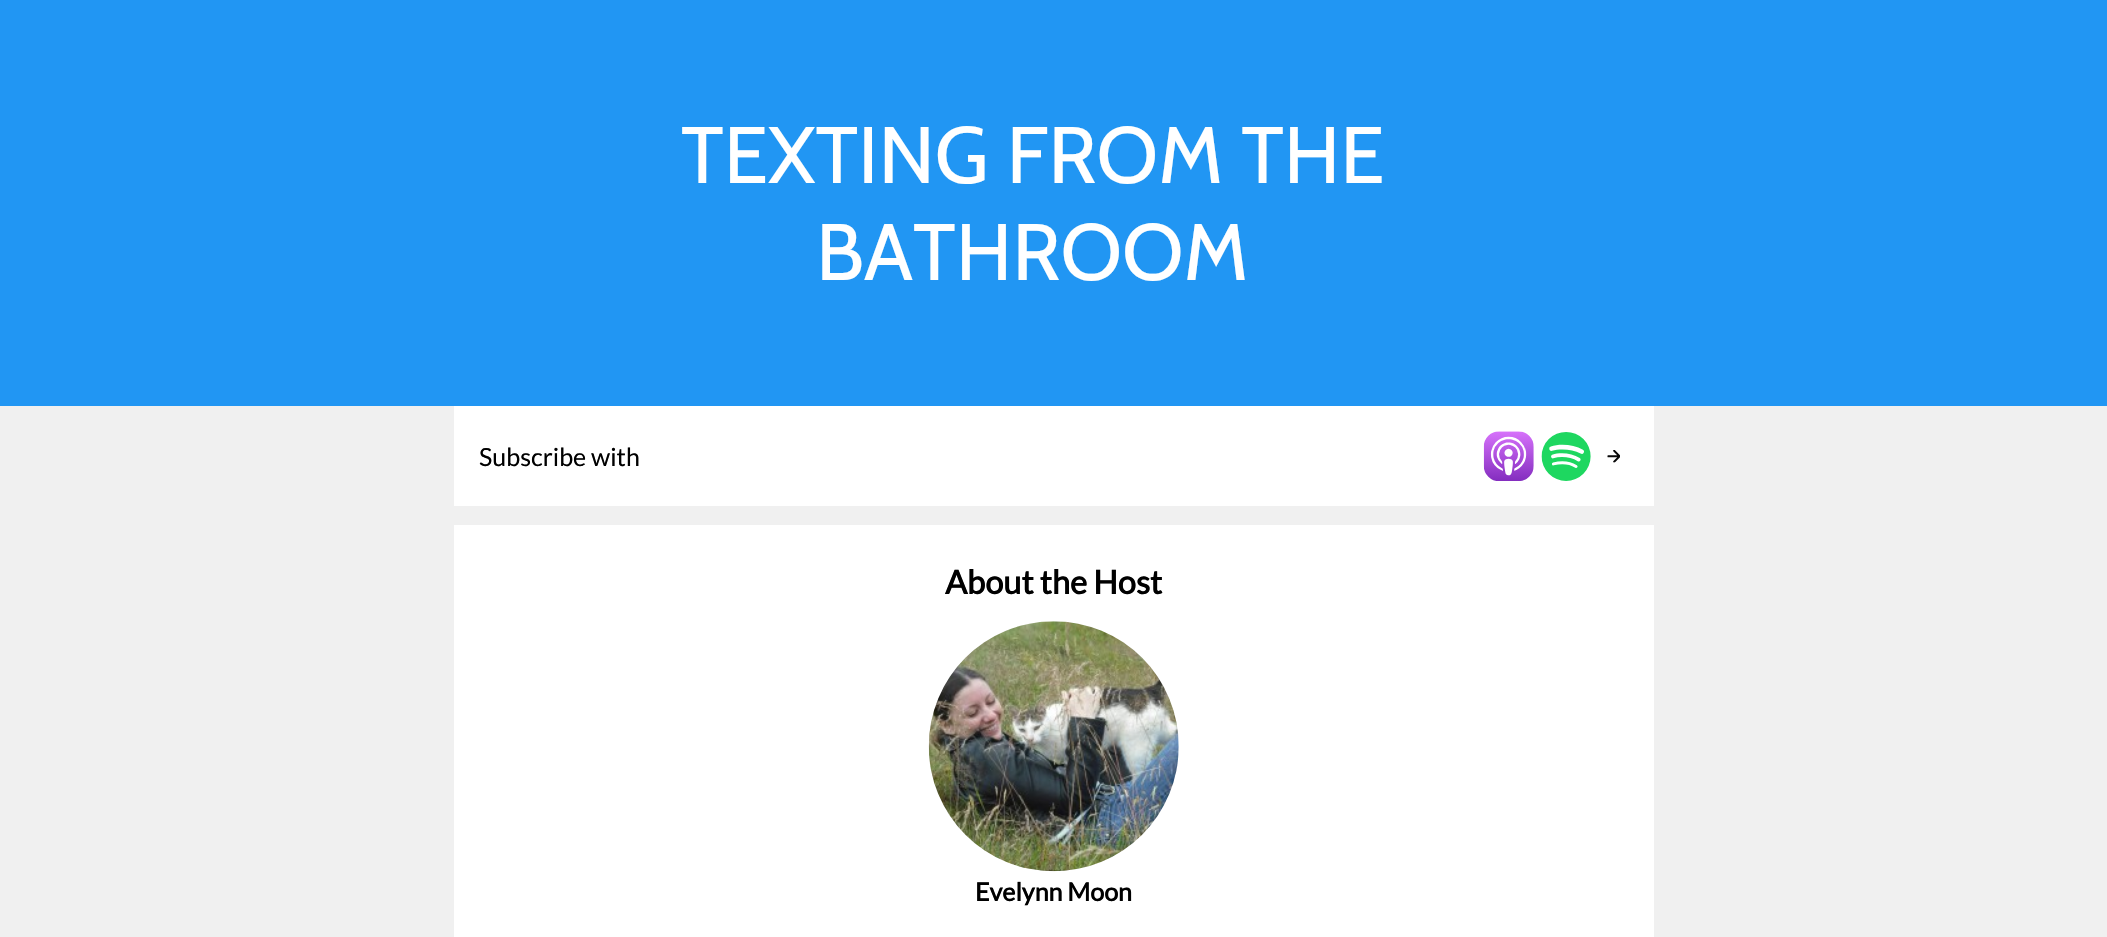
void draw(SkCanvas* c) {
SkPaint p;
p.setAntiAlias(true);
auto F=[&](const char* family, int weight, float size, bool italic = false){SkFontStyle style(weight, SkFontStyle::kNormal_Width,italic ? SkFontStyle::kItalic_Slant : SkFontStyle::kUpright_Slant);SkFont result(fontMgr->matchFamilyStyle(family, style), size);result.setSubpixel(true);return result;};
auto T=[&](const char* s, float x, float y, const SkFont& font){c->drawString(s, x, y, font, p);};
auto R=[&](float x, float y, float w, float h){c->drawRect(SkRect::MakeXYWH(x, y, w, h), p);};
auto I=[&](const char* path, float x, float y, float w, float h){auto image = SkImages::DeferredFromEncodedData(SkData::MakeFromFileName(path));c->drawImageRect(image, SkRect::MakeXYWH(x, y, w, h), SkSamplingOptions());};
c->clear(0xfff0f0f0);
p.setColor(0xff2196f3);
R(0,0,2107,406);
auto f1 = F("Cabin",400,80);
p.setColor(0xffffffff);
T("TEXTING FROM THE",681,183,f1);
T("BATHROOM",816,280,f1);
R(454,406,1200,100);
auto f2 = F("Lato",400,25);
p.setColor(0xff000000);
T("Subscribe with",479,466,f2);
I("1.png",1483,431,137,50);
p.setColor(0xffffffff);
R(454,525,1200,412);
auto f3 = F("Lato",700,32.5);
p.setColor(0xff000000);
T("About the Host",945,594,f3);
I("2.png",928,621,251,251);
auto f4 = F("Lato",700,25);
T("Evelynn Moon",975,901,f4);
}
